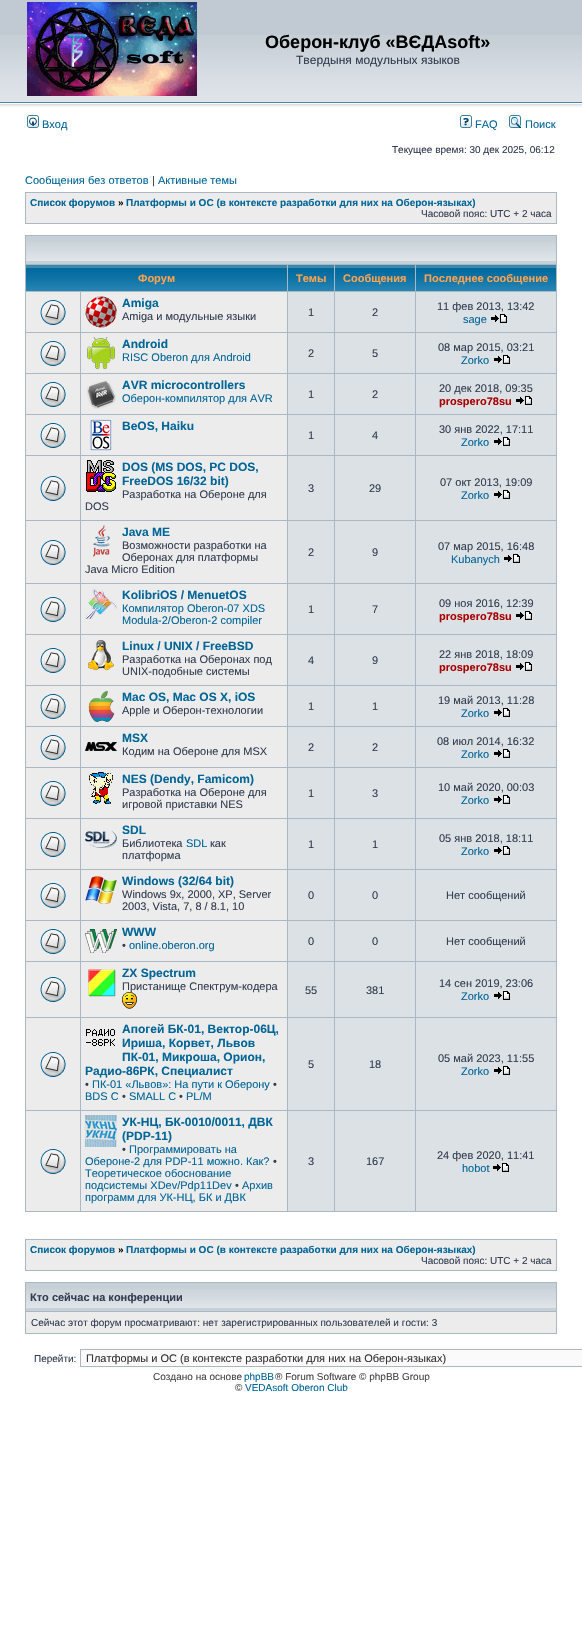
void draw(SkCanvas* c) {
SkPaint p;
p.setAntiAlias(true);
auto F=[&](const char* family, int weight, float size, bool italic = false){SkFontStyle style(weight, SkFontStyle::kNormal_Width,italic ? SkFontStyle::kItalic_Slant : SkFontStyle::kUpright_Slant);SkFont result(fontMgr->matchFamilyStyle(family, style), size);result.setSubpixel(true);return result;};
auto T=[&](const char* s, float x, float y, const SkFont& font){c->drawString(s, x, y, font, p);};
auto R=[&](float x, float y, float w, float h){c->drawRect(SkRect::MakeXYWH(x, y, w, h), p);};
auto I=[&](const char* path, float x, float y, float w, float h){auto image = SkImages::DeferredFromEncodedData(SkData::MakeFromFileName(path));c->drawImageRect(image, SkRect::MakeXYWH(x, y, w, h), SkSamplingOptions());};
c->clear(0xffffffff);
p.setColor(0xffc1cad2);
R(0,0,582,35);
I("1.png",0,35,582,78);
I("2.png",27,2,170,94);
auto f1 = F("Liberation Sans",700,18);
p.setColor(0xff000000);
T("Оберон-клуб «ВЄДАsoft»",265,48,f1);
auto f2 = F("Liberation Sans",400,12);
p.setColor(0xff323d4f);
T("Твердыня модульных языков",296,64,f2);
I("3.png",27,115,12,13);
auto f3 = F("Liberation Sans",400,11);
p.setColor(0xff006597);
T("Вход",42,128,f3);
I("4.png",460,115,12,13);
T("FAQ",475,128,f3);
I("5.png",509,115,12,13);
T("Поиск",525,128,f3);
auto f4 = F("Liberation Sans",400,10);
p.setColor(0xff323d4f);
T("Текущее время: 30 дек 2025, 06:12",392,153,f4);
p.setColor(0xff006597);
T("Сообщения без ответов",25,184,f3);
p.setColor(0xff323d4f);
T("|",152,184,f3);
p.setColor(0xff006597);
T("Активные темы",158,184,f3);
p.setColor(0xffa9b8c2);
R(25,192,532,32);
p.setColor(0xffececec);
R(26,193,530,30);
auto f5 = F("Liberation Sans",700,10);
p.setColor(0xff006597);
T("Список форумов",30,206,f5);
p.setColor(0xff000000);
T("»",118,206,f5);
p.setColor(0xff006597);
T("Платформы и ОС (в контексте разработки для них на Оберон-языках)",126,206,f5);
p.setColor(0xff323d4f);
T("Часовой пояс: UTC + 2 часа",421,217,f4);
p.setColor(0xffa9b8c2);
R(25,235,532,977);
p.setColor(0xffc7d0d7);
R(26,236,530,28);
I("6.png",26,242,530,19);
I("7.png",26,265,261,26);
auto f6 = F("Liberation Sans",700,11);
p.setColor(0xffffa34f);
T("Форум",138,282,f6);
I("8.png",288,265,46,26);
T("Темы",296,282,f6);
I("9.png",335,265,80,26);
T("Сообщения",343,282,f6);
I("10.png",416,265,140,26);
T("Последнее сообщение",424,282,f6);
p.setColor(0xffececec);
R(26,292,54,40);
I("11.png",40,300,26,25);
R(81,292,206,40);
I("12.png",85,296,32,32);
auto f7 = F("Liberation Sans",700,12);
p.setColor(0xff006597);
T("Amiga",122,307,f7);
p.setColor(0xff323d4f);
T("Amiga и модульные языки",122,320,f3);
p.setColor(0xffdce1e5);
R(288,292,46,40);
p.setColor(0xff323d4f);
T("1",308,316,f3);
p.setColor(0xffdce1e5);
R(335,292,80,40);
p.setColor(0xff323d4f);
T("2",372,316,f3);
p.setColor(0xffdce1e5);
R(416,292,140,40);
p.setColor(0xff323d4f);
T("11 фев 2013, 13:42",437,310,f3);
p.setColor(0xff006597);
T("sage",463,323,f3);
I("13.png",491,314,16,9);
p.setColor(0xffececec);
R(26,333,54,40);
I("11.png",40,341,26,25);
R(81,333,206,40);
I("14.png",87,337,28,32);
p.setColor(0xff006597);
T("Android",122,348,f7);
T("RISC Oberon для Android",122,361,f3);
p.setColor(0xffdce1e5);
R(288,333,46,40);
p.setColor(0xff323d4f);
T("2",308,357,f3);
p.setColor(0xffdce1e5);
R(335,333,80,40);
p.setColor(0xff323d4f);
T("5",372,357,f3);
p.setColor(0xffdce1e5);
R(416,333,140,40);
p.setColor(0xff323d4f);
T("08 мар 2015, 03:21",438,351,f3);
p.setColor(0xff006597);
T("Zorko",461,364,f3);
I("13.png",494,355,16,9);
p.setColor(0xffececec);
R(26,374,54,40);
I("11.png",40,382,26,25);
R(81,374,206,40);
I("15.png",86,381,30,28);
p.setColor(0xff006597);
T("AVR microcontrollers",122,389,f7);
T("Оберон-компилятор для AVR",122,402,f3);
p.setColor(0xffdce1e5);
R(288,374,46,40);
p.setColor(0xff323d4f);
T("1",308,398,f3);
p.setColor(0xffdce1e5);
R(335,374,80,40);
p.setColor(0xff323d4f);
T("2",372,398,f3);
p.setColor(0xffdce1e5);
R(416,374,140,40);
p.setColor(0xff323d4f);
T("20 дек 2018, 09:35",439,392,f3);
p.setColor(0xffaa0000);
T("prospero78su",439,405,f6);
I("13.png",516,396,16,9);
p.setColor(0xffececec);
R(26,415,54,40);
I("11.png",40,423,26,25);
R(81,415,206,40);
I("16.png",90,419,22,32);
p.setColor(0xff006597);
T("BeOS, Haiku",122,430,f7);
p.setColor(0xffdce1e5);
R(288,415,46,40);
p.setColor(0xff323d4f);
T("1",308,439,f3);
p.setColor(0xffdce1e5);
R(335,415,80,40);
p.setColor(0xff323d4f);
T("4",372,439,f3);
p.setColor(0xffdce1e5);
R(416,415,140,40);
p.setColor(0xff323d4f);
T("30 янв 2022, 17:11",439,433,f3);
p.setColor(0xff006597);
T("Zorko",461,446,f3);
I("13.png",494,437,16,9);
p.setColor(0xffececec);
R(26,456,54,64);
I("11.png",40,476,26,25);
R(81,456,206,64);
I("17.png",86,460,30,32);
p.setColor(0xff006597);
T("DOS (MS DOS, PC DOS,",122,471,f7);
T("FreeDOS 16/32 bit)",122,485,f7);
p.setColor(0xff323d4f);
T("Разработка на Обероне для",122,498,f3);
T("DOS",85,510,f3);
p.setColor(0xffdce1e5);
R(288,456,46,64);
p.setColor(0xff323d4f);
T("3",308,492,f3);
p.setColor(0xffdce1e5);
R(335,456,80,64);
p.setColor(0xff323d4f);
T("29",369,492,f3);
p.setColor(0xffdce1e5);
R(416,456,140,64);
p.setColor(0xff323d4f);
T("07 окт 2013, 19:09",440,486,f3);
p.setColor(0xff006597);
T("Zorko",461,499,f3);
I("13.png",494,490,16,9);
p.setColor(0xffececec);
R(26,521,54,62);
I("11.png",40,540,26,25);
R(81,521,206,62);
I("18.png",93,525,17,32);
p.setColor(0xff006597);
T("Java ME",122,536,f7);
p.setColor(0xff323d4f);
T("Возможности разработки на",122,549,f3);
T("Оберонах для платформы",122,561,f3);
T("Java Micro Edition",85,573,f3);
p.setColor(0xffdce1e5);
R(288,521,46,62);
p.setColor(0xff323d4f);
T("2",308,556,f3);
p.setColor(0xffdce1e5);
R(335,521,80,62);
p.setColor(0xff323d4f);
T("9",372,556,f3);
p.setColor(0xffdce1e5);
R(416,521,140,62);
p.setColor(0xff323d4f);
T("07 мар 2015, 16:48",438,550,f3);
p.setColor(0xff006597);
T("Kubanych",451,563,f3);
I("13.png",504,554,16,9);
p.setColor(0xffececec);
R(26,584,54,50);
I("11.png",40,597,26,25);
R(81,584,206,50);
I("19.png",85,588,32,31);
p.setColor(0xff006597);
T("KolibriOS / MenuetOS",122,599,f7);
T("Компилятор Oberon-07 XDS",122,612,f3);
T("Modula-2/Oberon-2 compiler",122,624,f3);
p.setColor(0xffdce1e5);
R(288,584,46,50);
p.setColor(0xff323d4f);
T("1",308,613,f3);
p.setColor(0xffdce1e5);
R(335,584,80,50);
p.setColor(0xff323d4f);
T("7",372,613,f3);
p.setColor(0xffdce1e5);
R(416,584,140,50);
p.setColor(0xff323d4f);
T("09 ноя 2016, 12:39",439,607,f3);
p.setColor(0xffaa0000);
T("prospero78su",439,620,f6);
I("13.png",516,611,16,9);
p.setColor(0xffececec);
R(26,635,54,50);
I("11.png",40,648,26,25);
R(81,635,206,50);
I("20.png",88,640,26,31);
p.setColor(0xff006597);
T("Linux / UNIX / FreeBSD",122,650,f7);
p.setColor(0xff323d4f);
T("Разработка на Оберонах под",122,663,f3);
T("UNIX-подобные системы",122,675,f3);
p.setColor(0xffdce1e5);
R(288,635,46,50);
p.setColor(0xff323d4f);
T("4",308,664,f3);
p.setColor(0xffdce1e5);
R(335,635,80,50);
p.setColor(0xff323d4f);
T("9",372,664,f3);
p.setColor(0xffdce1e5);
R(416,635,140,50);
p.setColor(0xff323d4f);
T("22 янв 2018, 18:09",439,658,f3);
p.setColor(0xffaa0000);
T("prospero78su",439,671,f6);
I("13.png",516,662,16,9);
p.setColor(0xffececec);
R(26,686,54,40);
I("11.png",40,694,26,25);
R(81,686,206,40);
I("21.png",88,690,27,32);
p.setColor(0xff006597);
T("Mac OS, Mac OS X, iOS",122,701,f7);
p.setColor(0xff323d4f);
T("Apple и Оберон-технологии",122,714,f3);
p.setColor(0xffdce1e5);
R(288,686,46,40);
p.setColor(0xff323d4f);
T("1",308,710,f3);
p.setColor(0xffdce1e5);
R(335,686,80,40);
p.setColor(0xff323d4f);
T("1",372,710,f3);
p.setColor(0xffdce1e5);
R(416,686,140,40);
p.setColor(0xff323d4f);
T("19 май 2013, 11:28",438,704,f3);
p.setColor(0xff006597);
T("Zorko",461,717,f3);
I("13.png",494,708,16,9);
p.setColor(0xffececec);
R(26,727,54,40);
I("11.png",40,735,26,25);
R(81,727,206,40);
p.setColor(0xff006597);
T("MSX",122,742,f7);
I("22.png",85,742,32,9);
p.setColor(0xff323d4f);
T("Кодим на Обероне для MSX",122,755,f3);
p.setColor(0xffdce1e5);
R(288,727,46,40);
p.setColor(0xff323d4f);
T("2",308,751,f3);
p.setColor(0xffdce1e5);
R(335,727,80,40);
p.setColor(0xff323d4f);
T("2",372,751,f3);
p.setColor(0xffdce1e5);
R(416,727,140,40);
p.setColor(0xff323d4f);
T("08 июл 2014, 16:32",437,745,f3);
p.setColor(0xff006597);
T("Zorko",461,758,f3);
I("13.png",494,749,16,9);
p.setColor(0xffececec);
R(26,768,54,50);
I("11.png",40,781,26,25);
R(81,768,206,50);
I("23.png",89,772,24,32);
p.setColor(0xff006597);
T("NES (Dendy, Famicom)",122,783,f7);
p.setColor(0xff323d4f);
T("Разработка на Обероне для",122,796,f3);
T("игровой приставки NES",122,808,f3);
p.setColor(0xffdce1e5);
R(288,768,46,50);
p.setColor(0xff323d4f);
T("1",308,797,f3);
p.setColor(0xffdce1e5);
R(335,768,80,50);
p.setColor(0xff323d4f);
T("3",372,797,f3);
p.setColor(0xffdce1e5);
R(416,768,140,50);
p.setColor(0xff323d4f);
T("10 май 2020, 00:03",438,791,f3);
p.setColor(0xff006597);
T("Zorko",461,804,f3);
I("13.png",494,795,16,9);
p.setColor(0xffececec);
R(26,819,54,50);
I("11.png",40,832,26,25);
R(81,819,206,50);
p.setColor(0xff006597);
T("SDL",122,834,f7);
I("24.png",85,831,32,17);
p.setColor(0xff323d4f);
T("Библиотека",122,847,f3);
p.setColor(0xff006597);
T("SDL",186,847,f3);
p.setColor(0xff323d4f);
T("как",210,847,f3);
T("платформа",122,859,f3);
p.setColor(0xffdce1e5);
R(288,819,46,50);
p.setColor(0xff323d4f);
T("1",308,848,f3);
p.setColor(0xffdce1e5);
R(335,819,80,50);
p.setColor(0xff323d4f);
T("1",372,848,f3);
p.setColor(0xffdce1e5);
R(416,819,140,50);
p.setColor(0xff323d4f);
T("05 янв 2018, 18:11",439,842,f3);
p.setColor(0xff006597);
T("Zorko",461,855,f3);
I("13.png",494,846,16,9);
p.setColor(0xffececec);
R(26,870,54,50);
I("11.png",40,883,26,25);
R(81,870,206,50);
I("25.png",85,876,32,29);
p.setColor(0xff006597);
T("Windows (32/64 bit)",122,885,f7);
p.setColor(0xff323d4f);
T("Windows 9x, 2000, XP, Server",122,898,f3);
T("2003, Vista, 7, 8 / 8.1, 10",122,910,f3);
p.setColor(0xffdce1e5);
R(288,870,46,50);
p.setColor(0xff323d4f);
T("0",308,899,f3);
p.setColor(0xffdce1e5);
R(335,870,80,50);
p.setColor(0xff323d4f);
T("0",372,899,f3);
p.setColor(0xffdce1e5);
R(416,870,140,50);
p.setColor(0xff323d4f);
T("Нет сообщений",446,899,f3);
p.setColor(0xffececec);
R(26,921,54,40);
I("11.png",40,929,26,25);
R(81,921,206,40);
I("26.png",85,929,32,24);
p.setColor(0xff006597);
T("WWW",122,936,f7);
p.setColor(0xff323d4f);
T("•",122,949,f3);
p.setColor(0xff006597);
T("online.oberon.org",129,949,f3);
p.setColor(0xffdce1e5);
R(288,921,46,40);
p.setColor(0xff323d4f);
T("0",308,945,f3);
p.setColor(0xffdce1e5);
R(335,921,80,40);
p.setColor(0xff323d4f);
T("0",372,945,f3);
p.setColor(0xffdce1e5);
R(416,921,140,40);
p.setColor(0xff323d4f);
T("Нет сообщений",446,945,f3);
p.setColor(0xffececec);
R(26,962,54,55);
I("11.png",40,977,26,25);
R(81,962,206,55);
I("27.png",88,969,28,28);
p.setColor(0xff006597);
T("ZX Spectrum",122,977,f7);
p.setColor(0xff323d4f);
T("Пристанище Спектрум-кодера",122,990,f3);
I("28.png",122,992,15,17);
p.setColor(0xffdce1e5);
R(288,962,46,55);
p.setColor(0xff323d4f);
T("55",305,994,f3);
p.setColor(0xffdce1e5);
R(335,962,80,55);
p.setColor(0xff323d4f);
T("381",366,994,f3);
p.setColor(0xffdce1e5);
R(416,962,140,55);
p.setColor(0xff323d4f);
T("14 сен 2019, 23:06",439,987,f3);
p.setColor(0xff006597);
T("Zorko",461,1000,f3);
I("13.png",494,991,16,9);
p.setColor(0xffececec);
R(26,1018,54,92);
I("11.png",40,1052,26,25);
R(81,1018,206,92);
I("29.png",86,1029,29,17);
p.setColor(0xff006597);
T("Апогей БК-01, Вектор-06Ц,",122,1033,f7);
T("Ириша, Корвет, Львов",122,1047,f7);
T("ПК-01, Микроша, Орион,",122,1061,f7);
T("Радио-86РК, Специалист",85,1075,f7);
p.setColor(0xff323d4f);
T("•",85,1088,f3);
p.setColor(0xff006597);
T("ПК-01 «Львов»: На пути к Оберону",92,1088,f3);
p.setColor(0xff323d4f);
T("•",273,1088,f3);
p.setColor(0xff006597);
T("BDS C",85,1100,f3);
p.setColor(0xff323d4f);
T("•",122,1100,f3);
p.setColor(0xff006597);
T("SMALL C",129,1100,f3);
p.setColor(0xff323d4f);
T("•",179,1100,f3);
p.setColor(0xff006597);
T("PL/M",186,1100,f3);
p.setColor(0xffdce1e5);
R(288,1018,46,92);
p.setColor(0xff323d4f);
T("5",308,1068,f3);
p.setColor(0xffdce1e5);
R(335,1018,80,92);
p.setColor(0xff323d4f);
T("18",369,1068,f3);
p.setColor(0xffdce1e5);
R(416,1018,140,92);
p.setColor(0xff323d4f);
T("05 май 2023, 11:55",438,1062,f3);
p.setColor(0xff006597);
T("Zorko",461,1075,f3);
I("13.png",494,1066,16,9);
p.setColor(0xffececec);
R(26,1111,54,100);
I("11.png",40,1149,26,25);
R(81,1111,206,100);
I("30.png",85,1115,32,32);
p.setColor(0xff006597);
T("УК-НЦ, БК-0010/0011, ДВК",122,1126,f7);
T("(PDP-11)",122,1140,f7);
p.setColor(0xff323d4f);
T("•",122,1153,f3);
p.setColor(0xff006597);
T("Программировать на",129,1153,f3);
T("Обероне-2 для PDP-11 можно. Как?",85,1165,f3);
p.setColor(0xff323d4f);
T("•",273,1165,f3);
p.setColor(0xff006597);
T("Теоретическое обоснование",85,1177,f3);
T("подсистемы XDev/Pdp11Dev",85,1189,f3);
p.setColor(0xff323d4f);
T("•",235,1189,f3);
p.setColor(0xff006597);
T("Архив",242,1189,f3);
T("программ для УК-НЦ, БК и ДВК",85,1201,f3);
p.setColor(0xffdce1e5);
R(288,1111,46,100);
p.setColor(0xff323d4f);
T("3",308,1165,f3);
p.setColor(0xffdce1e5);
R(335,1111,80,100);
p.setColor(0xff323d4f);
T("167",366,1165,f3);
p.setColor(0xffdce1e5);
R(416,1111,140,100);
p.setColor(0xff323d4f);
T("24 фев 2020, 11:41",437,1159,f3);
p.setColor(0xff006597);
T("hobot",462,1172,f3);
I("13.png",493,1163,16,9);
p.setColor(0xffa9b8c2);
R(25,1239,532,32);
p.setColor(0xffececec);
R(26,1240,530,30);
p.setColor(0xff006597);
T("Список форумов",30,1253,f5);
p.setColor(0xff000000);
T("»",118,1253,f5);
p.setColor(0xff006597);
T("Платформы и ОС (в контексте разработки для них на Оберон-языках)",126,1253,f5);
p.setColor(0xff323d4f);
T("Часовой пояс: UTC + 2 часа",421,1264,f4);
p.setColor(0xffa9b8c2);
R(25,1282,532,52);
p.setColor(0xffc7d0d7);
R(26,1283,530,28);
I("6.png",26,1289,530,19);
p.setColor(0xff323d4f);
T("Кто сейчас на конференции",30,1301,f6);
p.setColor(0xffececec);
R(26,1312,530,21);
p.setColor(0xff323d4f);
T("Сейчас этот форум просматривают: нет зарегистрированных пользователей и гости: 3",31,1326,f4);
T("Перейти:",34,1362,f4);
p.setColor(0xfffafafa);
c->drawRect(SkRect::MakeXYWH(80.5,1349.5,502,17),p);
p.setStroke(true);
p.setStrokeWidth(1);
p.setColor(0xffa9b8c2);
c->drawRect(SkRect::MakeXYWH(80.5,1349.5,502,17),p);
p.setStroke(false);
p.setColor(0xff333333);
T("Платформы и ОС (в контексте разработки для них на Оберон-языках)",86,1362,f3);
p.setColor(0xff444444);
T("Создано на основе",153,1380,f4);
p.setColor(0xff006597);
T("phpBB",244,1380,f4);
p.setColor(0xff444444);
T("® Forum Software © phpBB Group",275,1380,f4);
T("©",235,1391,f4);
p.setColor(0xff006597);
T("VEDAsoft Oberon Club",245,1391,f4);
}
